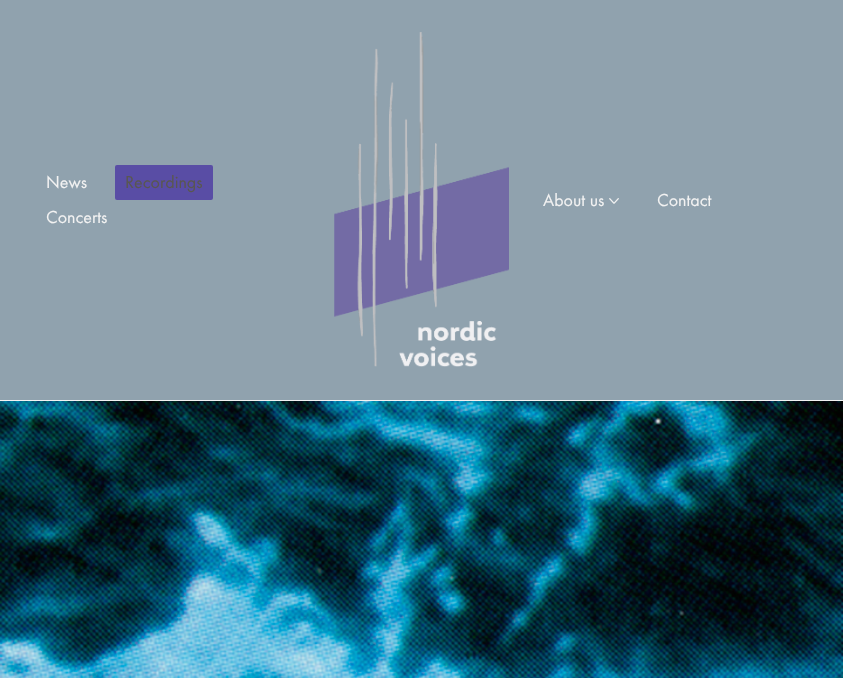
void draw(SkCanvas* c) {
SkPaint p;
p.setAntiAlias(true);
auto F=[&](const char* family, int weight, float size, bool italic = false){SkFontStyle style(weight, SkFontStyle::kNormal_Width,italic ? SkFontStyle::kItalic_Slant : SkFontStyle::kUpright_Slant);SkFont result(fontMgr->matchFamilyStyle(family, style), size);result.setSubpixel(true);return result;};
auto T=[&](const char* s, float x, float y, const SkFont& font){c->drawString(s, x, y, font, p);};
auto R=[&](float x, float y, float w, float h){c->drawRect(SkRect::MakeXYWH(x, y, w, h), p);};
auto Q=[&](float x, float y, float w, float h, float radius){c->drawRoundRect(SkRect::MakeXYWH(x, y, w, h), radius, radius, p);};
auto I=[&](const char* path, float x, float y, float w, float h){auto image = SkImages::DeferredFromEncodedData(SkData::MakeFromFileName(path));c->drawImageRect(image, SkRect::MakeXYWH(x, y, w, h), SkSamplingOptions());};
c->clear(0xfff2f2f2);
p.setColor(0xff90a2ae);
R(0,0,843,400);
auto f1 = F("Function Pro",400,18);
p.setColor(0xfff2f2f2);
T("News",46,188,f1);
p.setColor(0xff594da5);
Q(115,165,98,35,2);
p.setColor(0xff595651);
T("Recordings",125,188,f1);
p.setColor(0xfff2f2f2);
T("Concerts",46,223,f1);
I("1.png",334,32,175,335);
T("About us",543,206,f1);
I("2.png",609,198,10,6);
T("Contact",657,206,f1);
I("3.png",0,401,843,277);
}
